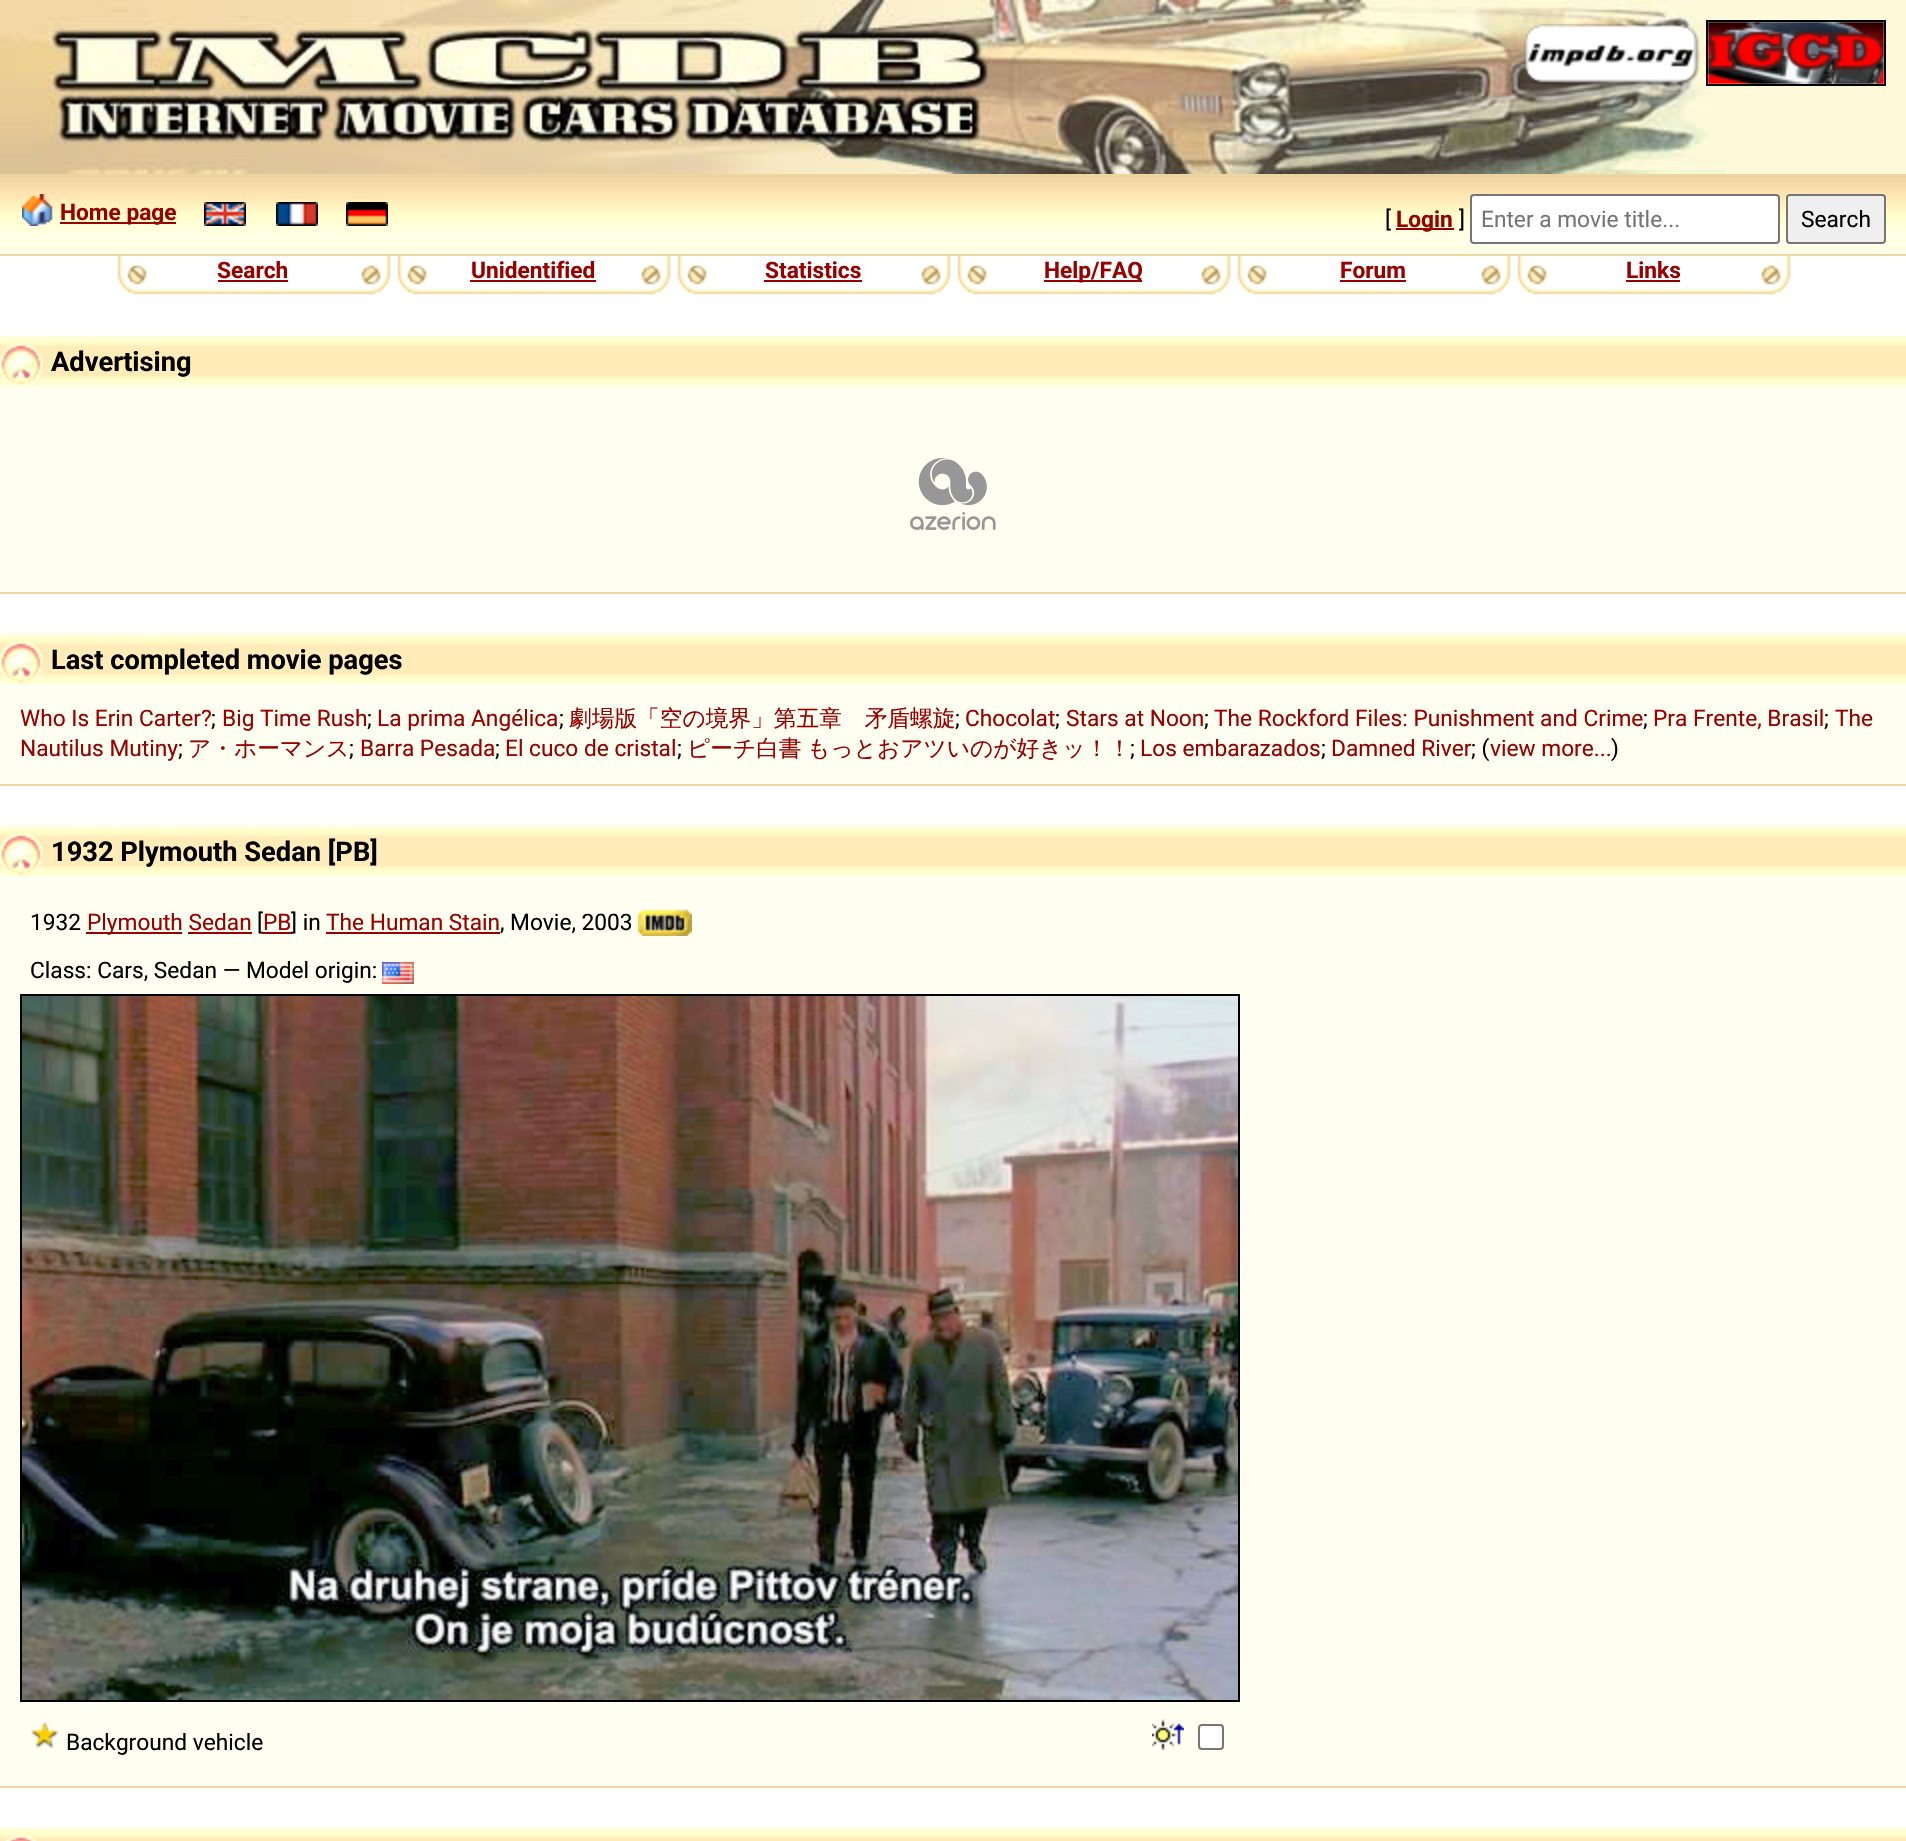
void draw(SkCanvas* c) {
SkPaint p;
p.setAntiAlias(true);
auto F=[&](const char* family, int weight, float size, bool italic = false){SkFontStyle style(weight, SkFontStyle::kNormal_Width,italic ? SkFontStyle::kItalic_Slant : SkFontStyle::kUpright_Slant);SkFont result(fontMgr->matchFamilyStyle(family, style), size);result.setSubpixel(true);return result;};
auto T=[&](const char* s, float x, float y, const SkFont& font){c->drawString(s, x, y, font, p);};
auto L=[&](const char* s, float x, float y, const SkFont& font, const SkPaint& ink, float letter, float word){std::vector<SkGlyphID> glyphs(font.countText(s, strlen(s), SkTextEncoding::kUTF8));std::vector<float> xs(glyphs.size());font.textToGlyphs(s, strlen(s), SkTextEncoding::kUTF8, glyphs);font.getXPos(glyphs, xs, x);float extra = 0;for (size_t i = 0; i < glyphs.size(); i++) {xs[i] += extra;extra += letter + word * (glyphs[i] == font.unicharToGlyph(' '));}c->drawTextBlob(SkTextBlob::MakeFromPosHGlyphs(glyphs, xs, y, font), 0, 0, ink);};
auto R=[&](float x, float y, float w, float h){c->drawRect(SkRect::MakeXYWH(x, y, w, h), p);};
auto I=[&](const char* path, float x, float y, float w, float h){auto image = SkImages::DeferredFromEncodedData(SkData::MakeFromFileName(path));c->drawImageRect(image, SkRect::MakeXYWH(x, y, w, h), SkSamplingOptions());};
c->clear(0xffffffff);
p.setColor(0xfffef9d9);
R(1726,0,180,174);
I("1.png",0,0,1726,174);
I("3.png",1708,22,176,62);
p.setStroke(true);
p.setStrokeWidth(2);
p.setColor(0xff000000);
c->drawRect(SkRect::MakeXYWH(1707,21,178,64),p);
I("2.png",1524,24,176,62);
p.setStroke(false);
p.setColor(0xffffffe7);
R(0,235,1906,19);
I("4.png",0,174,1906,61);
p.setColor(0xffefd6a3);
R(0,254,1906,2);
I("5.png",22,194,31,32);
p.setColor(0xff990000);
R(60,222,116,2);
auto f1 = F("Roboto",700,22.7);
T("Home page",60,220,f1);
I("6.png",204,202,42,24);
I("7.png",276,202,42,24);
I("8.png",346,202,42,24);
auto f2 = F("Roboto",400,22.7);
p.setColor(0xff000000);
T("[",1385,227,f2);
p.setColor(0xff990000);
R(1396,228,58,2);
T("Login",1396,227,f1);
p.setColor(0xff000000);
T("]",1459,227,f2);
p.setColor(0xffffffff);
c->drawRoundRect(SkRect::MakeXYWH(1471,195,308,48),3,3,p);
p.setStroke(true);
p.setColor(0xff767676);
c->drawRoundRect(SkRect::MakeXYWH(1471,195,308,48),3,3,p);
p.setStroke(false);
p.setColor(0xff757575);
T("Enter a movie title...",1481,227,f2);
p.setColor(0xffefefef);
c->drawRoundRect(SkRect::MakeXYWH(1787,195,98,48),3,3,p);
p.setStroke(true);
p.setColor(0xff767676);
c->drawRoundRect(SkRect::MakeXYWH(1787,195,98,48),3,3,p);
p.setStroke(false);
p.setColor(0xff000000);
T("Search",1801,227,f2);
I("9.png",117,256,274,39);
p.setColor(0xff990000);
T("Search",217,278,f1);
R(218,280,70,2);
I("9.png",397,256,274,39);
T("Unidentified",471,278,f1);
R(470,280,126,2);
I("9.png",677,256,274,39);
T("Statistics",765,278,f1);
R(764,280,98,2);
I("9.png",957,256,274,39);
R(1044,280,98,2);
T("Help/FAQ",1044,278,f1);
I("9.png",1237,256,274,39);
T("Forum",1340,278,f1);
R(1340,280,66,2);
I("9.png",1517,256,274,39);
T("Links",1626,278,f1);
R(1626,280,54,2);
p.setColor(0xfffffff1);
R(0,386,1906,206);
p.setColor(0xffefd6a3);
R(0,592,1906,2);
p.setColor(0xffffffd7);
R(0,336,1906,50);
I("10.png",0,340,1906,42);
I("11.png",0,343,43,42);
auto f3 = F("Roboto",700,27.25);
p.setColor(0xff000000);
T("Advertising",51,371,f3);
I("12.png",910,458,86,72);
p.setColor(0xfffffff1);
R(0,684,1906,100);
p.setColor(0xffefd6a3);
R(0,784,1906,2);
p.setColor(0xffffffd7);
R(0,634,1906,50);
I("10.png",0,638,1906,42);
I("11.png",0,641,43,42);
p.setColor(0xff000000);
T("Last completed movie pages",51,669,f3);
p.setColor(0xff990000);
T("Who Is Erin Carter?",20,726,f2);
p.setColor(0xff000000);
T(";",211,726,f2);
p.setColor(0xff990000);
T("Big Time Rush",222,726,f2);
p.setColor(0xff000000);
T(";",367,726,f2);
p.setColor(0xff990000);
T("La prima Angélica",377,726,f2);
p.setColor(0xff000000);
T(";",559,726,f2);
auto f4 = F("WenQuanYi Zen Hei",500,22.7);
p.setColor(0xff990000);
T("劇場版「空の境界」第五章　矛盾螺旋",569,726,f4);
p.setColor(0xff000000);
T(";",955,726,f2);
p.setColor(0xff990000);
T("Chocolat",965,726,f2);
p.setColor(0xff000000);
T(";",1055,726,f2);
p.setColor(0xff990000);
T("Stars at Noon",1066,726,f2);
p.setColor(0xff000000);
T(";",1204,726,f2);
p.setColor(0xff990000);
T("The Rockford Files: Punishment and Crime",1214,726,f2);
p.setColor(0xff000000);
T(";",1643,726,f2);
p.setColor(0xff990000);
T("Pra Frente, Brasil",1653,726,f2);
p.setColor(0xff000000);
T(";",1824,726,f2);
p.setColor(0xff990000);
T("The",1835,726,f2);
T("Nautilus Mutiny",20,756,f2);
p.setColor(0xff000000);
T(";",178,756,f2);
p.setColor(0xff990000);
T("ア・ホーマンス",188,756,f4);
p.setColor(0xff000000);
T(";",349,756,f2);
p.setColor(0xff990000);
T("Barra Pesada",360,756,f2);
p.setColor(0xff000000);
T(";",495,756,f2);
p.setColor(0xff990000);
T("El cuco de cristal",505,756,f2);
p.setColor(0xff000000);
T(";",677,756,f2);
p.setColor(0xff990000);
L("ピーチ白書 もっとおアツいのが好きッ！！",687,756,f4,p,0,-1);
p.setColor(0xff000000);
T(";",1130,756,f2);
p.setColor(0xff990000);
T("Los embarazados",1140,756,f2);
p.setColor(0xff000000);
T(";",1321,756,f2);
p.setColor(0xff990000);
T("Damned River",1331,756,f2);
p.setColor(0xff000000);
T("; (",1471,756,f2);
p.setColor(0xff990000);
T("view more...",1490,756,f2);
p.setColor(0xff000000);
T(")",1611,756,f2);
p.setColor(0xfffffff1);
R(0,876,1906,910);
p.setColor(0xffefd6a3);
R(0,1786,1906,2);
p.setColor(0xffffffd7);
R(0,826,1906,50);
I("10.png",0,830,1906,42);
I("11.png",0,833,43,42);
p.setColor(0xff000000);
T("1932 Plymouth Sedan [PB]",51,861,f3);
T("1932",30,930,f2);
p.setColor(0xff990000);
R(86,932,96,2);
T("Plymouth Sedan",87,930,f2);
p.setColor(0xff000000);
T("[",257,930,f2);
p.setColor(0xff990000);
T("PB",263,930,f2);
R(262,932,30,2);
p.setColor(0xff000000);
T("] in",291,930,f2);
p.setColor(0xff990000);
T("The Human Stain",326,930,f2);
R(326,932,174,2);
p.setColor(0xff000000);
T(", Movie, 2003",500,930,f2);
I("13.png",638,909,54,27);
p.setColor(0xff990000);
R(188,932,64,2);
p.setColor(0xff000000);
T("Class: Cars, Sedan — Model origin:",30,978,f2);
I("14.png",382,962,32,22);
p.setStroke(true);
c->drawRect(SkRect::MakeXYWH(21,995,1218,706),p);
I("15.png",22,996,1216,704);
I("16.png",31,1721,28,28);
p.setStroke(false);
T("Background vehicle",66,1750,f2);
I("17.png",1152,1719,32,31);
p.setColor(0xffffffff);
c->drawRoundRect(SkRect::MakeXYWH(1199,1725,24,24),3,3,p);
p.setStroke(true);
p.setColor(0xff767676);
c->drawRoundRect(SkRect::MakeXYWH(1199,1725,24,24),3,3,p);
p.setStroke(false);
p.setColor(0xffffffd7);
R(0,1828,1906,4);
I("18.png",0,1832,1906,9);
I("19.png",5,1835,32,6);
}
